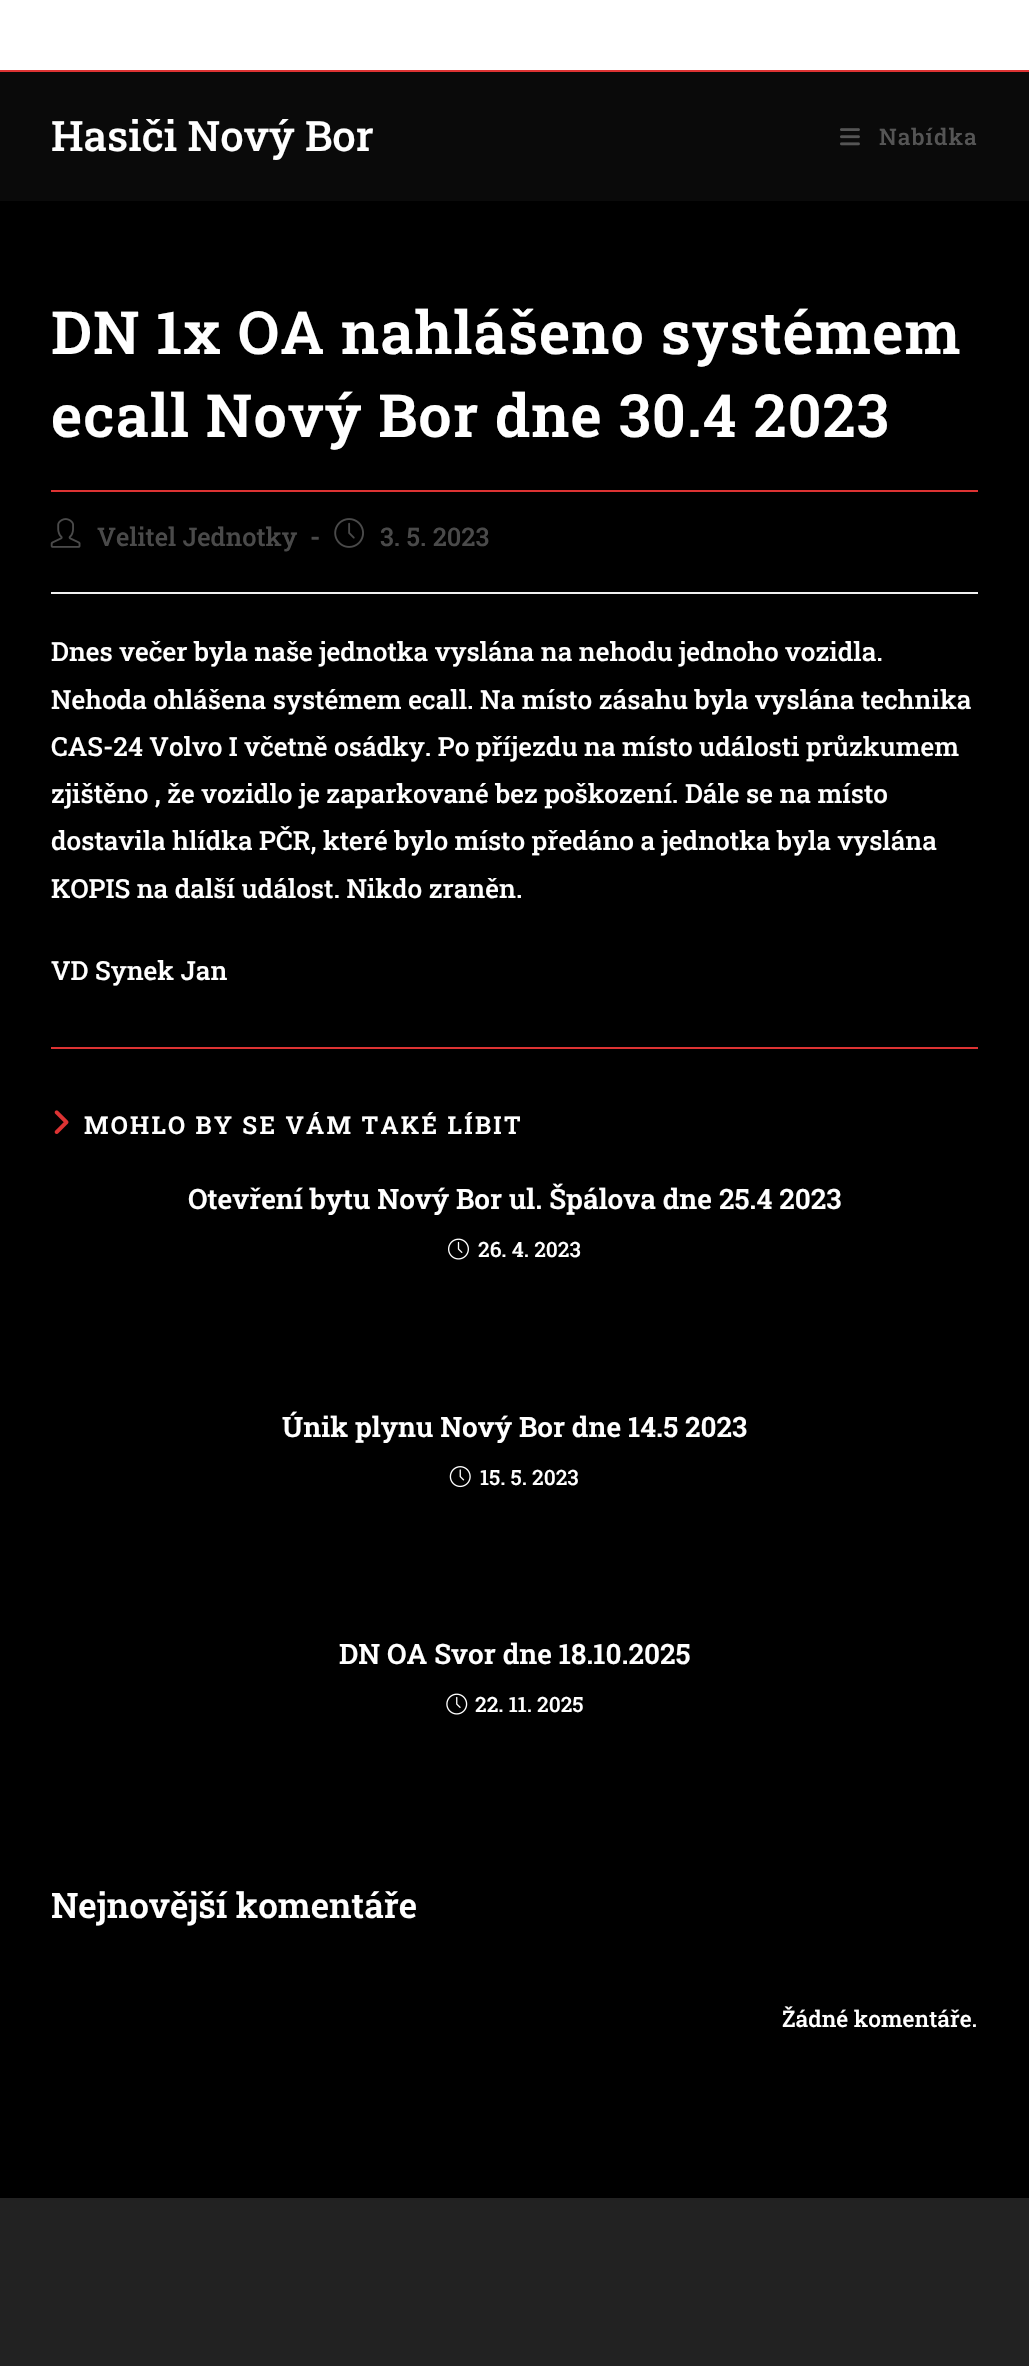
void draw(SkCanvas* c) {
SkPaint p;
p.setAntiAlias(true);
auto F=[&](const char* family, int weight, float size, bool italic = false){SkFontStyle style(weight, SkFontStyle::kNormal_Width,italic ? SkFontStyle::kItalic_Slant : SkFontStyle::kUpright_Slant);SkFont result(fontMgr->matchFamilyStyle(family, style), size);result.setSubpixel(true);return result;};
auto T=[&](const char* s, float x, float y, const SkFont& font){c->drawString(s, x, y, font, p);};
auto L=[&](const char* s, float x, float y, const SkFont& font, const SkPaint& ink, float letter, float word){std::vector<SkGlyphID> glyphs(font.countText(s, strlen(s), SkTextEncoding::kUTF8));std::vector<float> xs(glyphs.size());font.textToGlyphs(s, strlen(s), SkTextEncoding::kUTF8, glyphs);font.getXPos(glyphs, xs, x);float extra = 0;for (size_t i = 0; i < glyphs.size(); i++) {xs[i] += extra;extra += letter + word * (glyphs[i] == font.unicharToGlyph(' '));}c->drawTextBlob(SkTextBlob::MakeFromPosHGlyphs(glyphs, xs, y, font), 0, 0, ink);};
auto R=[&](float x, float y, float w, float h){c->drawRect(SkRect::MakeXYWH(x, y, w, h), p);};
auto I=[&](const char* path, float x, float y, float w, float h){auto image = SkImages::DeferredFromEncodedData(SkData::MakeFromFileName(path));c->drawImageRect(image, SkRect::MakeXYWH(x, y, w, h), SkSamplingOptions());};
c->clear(0xff000000);
p.setColor(0xffffffff);
R(0,0,1029,70);
p.setColor(0xffdd3333);
R(0,70,1029,2);
p.setColor(0xff0a0a0a);
R(0,72,1029,129);
auto f1 = F("Roboto Slab",500,42);
p.setColor(0xffffffff);
T("Hasiči Nový Bor",51,151,f1);
I("1.png",840,128,20,18);
auto f2 = F("Roboto Slab",500,22.75);
p.setColor(0xff555555);
L("Nabídka",879,145,f2,p,1.05,0);
p.setColor(0xffdd3333);
R(51,490,927,2);
auto f3 = F("Roboto Slab",600,59.5);
p.setColor(0xffffffff);
L("DN 1x OA nahlášeno systémem",51,354,f3,p,1.05,0);
L("ecall Nový Bor dne 30.4 2023",51,437,f3,p,1.05,0);
p.setColor(0xfff1f1f1);
R(51,592,927,2);
I("2.png",50,518,31,30);
auto f4 = F("Roboto Slab",500,25.5);
p.setColor(0xff4a4a4a);
T("Velitel Jednotky",97,546,f4);
auto f5 = F("Roboto Slab",700,25.5);
T("-",310,546,f5);
I("3.png",334,518,30,30);
T("3. 5. 2023",380,546,f4);
auto f6 = F("Roboto Slab",500,26.25);
p.setColor(0xffffffff);
T("Dnes večer byla naše jednotka vyslána na nehodu jednoho vozidla.",51,661,f6);
T("Nehoda ohlášena systémem ecall. Na místo zásahu byla vyslána technika",51,709,f6);
T("CAS-24 Volvo I včetně osádky. Po příjezdu na místo události průzkumem",51,756,f6);
T("zjištěno , že vozidlo je zaparkované bez poškození. Dále se na místo",51,803,f6);
T("dostavila hlídka PČR, které bylo místo předáno a jednotka byla vyslána",51,850,f6);
T("KOPIS na další událost. Nikdo zraněn.",51,898,f6);
T("VD Synek Jan",51,980,f6);
p.setColor(0xffdd3333);
R(51,1047,927,2);
I("4.png",54,1110,15,24);
auto f7 = F("Roboto Slab",600,24.5);
p.setColor(0xffffffff);
L("MOHLO BY SE VÁM TAKÉ LÍBIT",84,1134,f7,p,2.25,0);
auto f8 = F("Roboto Slab",600,28);
T("Otevření bytu Nový Bor ul. Špálova dne 25.4 2023",188,1209,f8);
I("5.png",448,1238,21,22);
auto f9 = F("Roboto Slab",500,21);
T("26. 4. 2023",478,1257,f9);
T("Únik plynu Nový Bor dne 14.5 2023",282,1437,f8);
I("6.png",449,1466,22,22);
T("15. 5. 2023",480,1485,f9);
T("DN OA Svor dne 18.10.2025",339,1664,f8);
I("7.png",446,1693,22,22);
T("22. 11. 2025",475,1712,f9);
auto f10 = F("Roboto Slab",600,35);
T("Nejnovější komentáře",51,1918,f10);
T("Žádné komentáře.",782,2027,f2);
p.setColor(0xff222222);
R(0,2198,1029,168);
}
